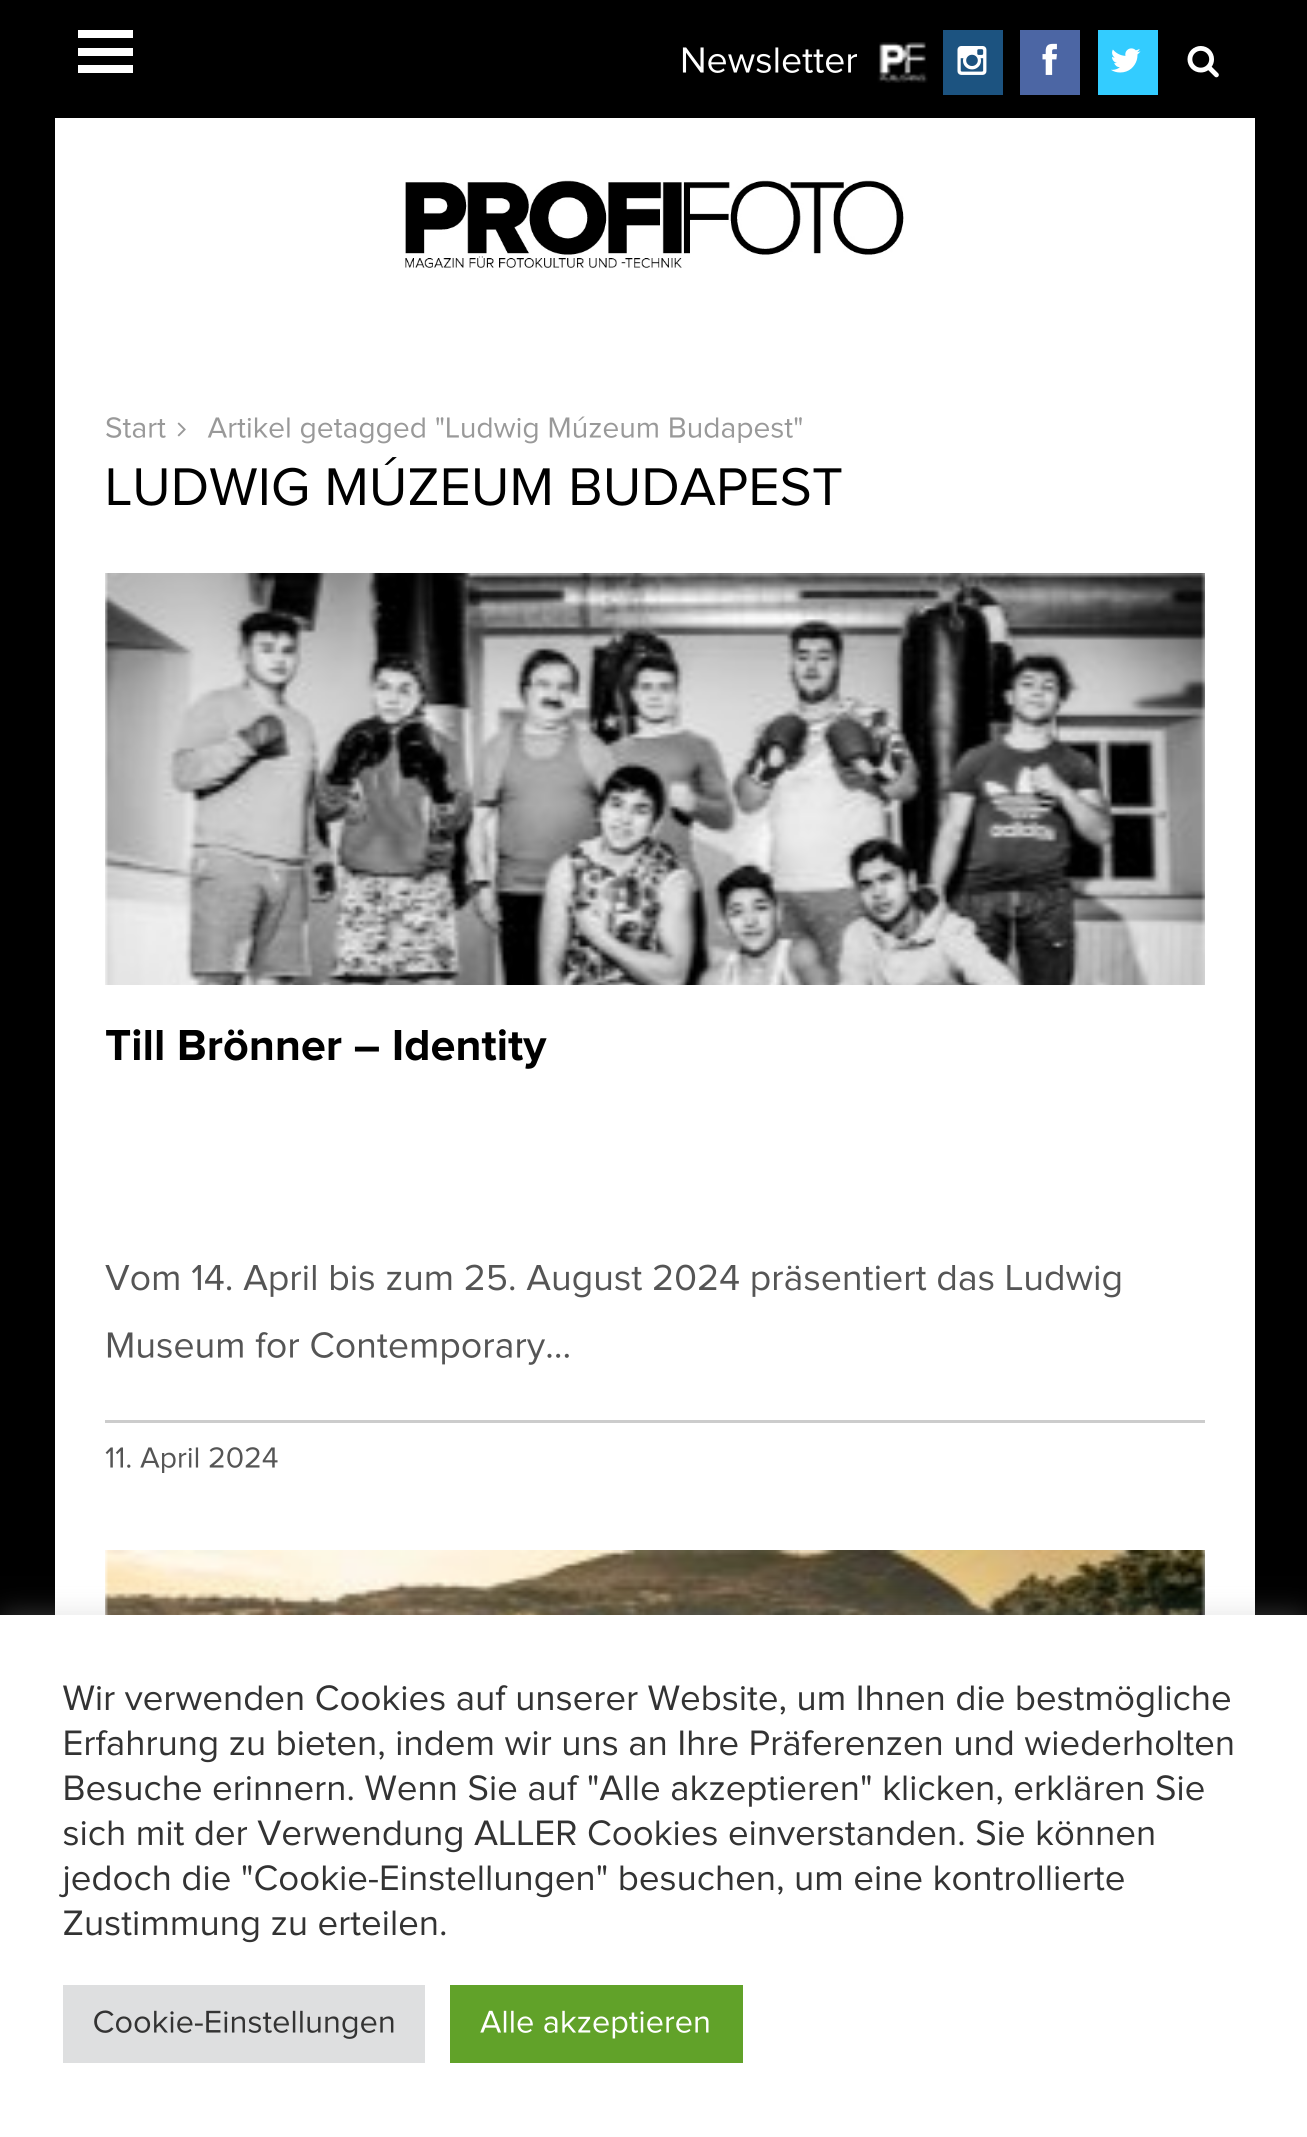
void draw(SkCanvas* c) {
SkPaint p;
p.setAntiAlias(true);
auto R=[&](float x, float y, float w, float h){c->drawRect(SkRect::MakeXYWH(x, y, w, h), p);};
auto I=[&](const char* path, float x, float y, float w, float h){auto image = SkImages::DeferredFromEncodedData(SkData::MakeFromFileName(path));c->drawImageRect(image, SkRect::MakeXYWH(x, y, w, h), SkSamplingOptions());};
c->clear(0xff000000);
p.setColor(0xffffffff);
R(55,118,1200,1497);
R(78,30,55,8);
R(78,48,55,8);
R(78,65,55,8);
I("1.png",682,47,175,26);
I("2.png",877,42,51,41);
p.setColor(0xff1c5380);
R(943,30,60,65);
I("3.png",957,46,30,29);
p.setColor(0xff4c66a4);
R(1020,30,60,65);
I("4.png",1042,43,15,32);
p.setColor(0xff33ccff);
R(1098,30,60,65);
I("5.png",1111,48,30,25);
I("6.png",1187,46,32,32);
I("7.png",405,180,499,88);
I("8.png",106,417,60,21);
I("9.png",177,422,9,15);
I("10.png",207,416,595,28);
I("11.png",108,457,734,49);
I("12.png",105,573,1100,412);
I("13.png",106,1029,441,40);
I("14.png",105,1264,1016,34);
I("15.png",107,1332,462,33);
p.setColor(0xffcccccc);
R(105,1420,1100,3);
I("16.png",105,1447,173,26);
I("17.png",105,1550,1100,65);
p.setColor(0x4dacabab);
p.setMaskFilter(SkMaskFilter::MakeBlur(kNormal_SkBlurStyle, 12.5));
c->drawRect(SkRect::MakeXYWH(0,1613,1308,522),p);
p.setMaskFilter(nullptr);
p.setColor(0xffffffff);
R(0,1615,1307,522);
I("18.png",63,1685,1167,33);
I("19.png",65,1730,1168,33);
I("20.png",65,1775,1139,32);
I("21.png",63,1820,1091,33);
I("22.png",59,1865,1065,33);
I("23.png",64,1910,382,33);
p.setColor(0xffdedfe0);
R(63,1985,362,78);
I("24.png",94,2010,300,29);
p.setColor(0xff61a229);
R(450,1985,293,78);
I("25.png",480,2010,229,29);
}
